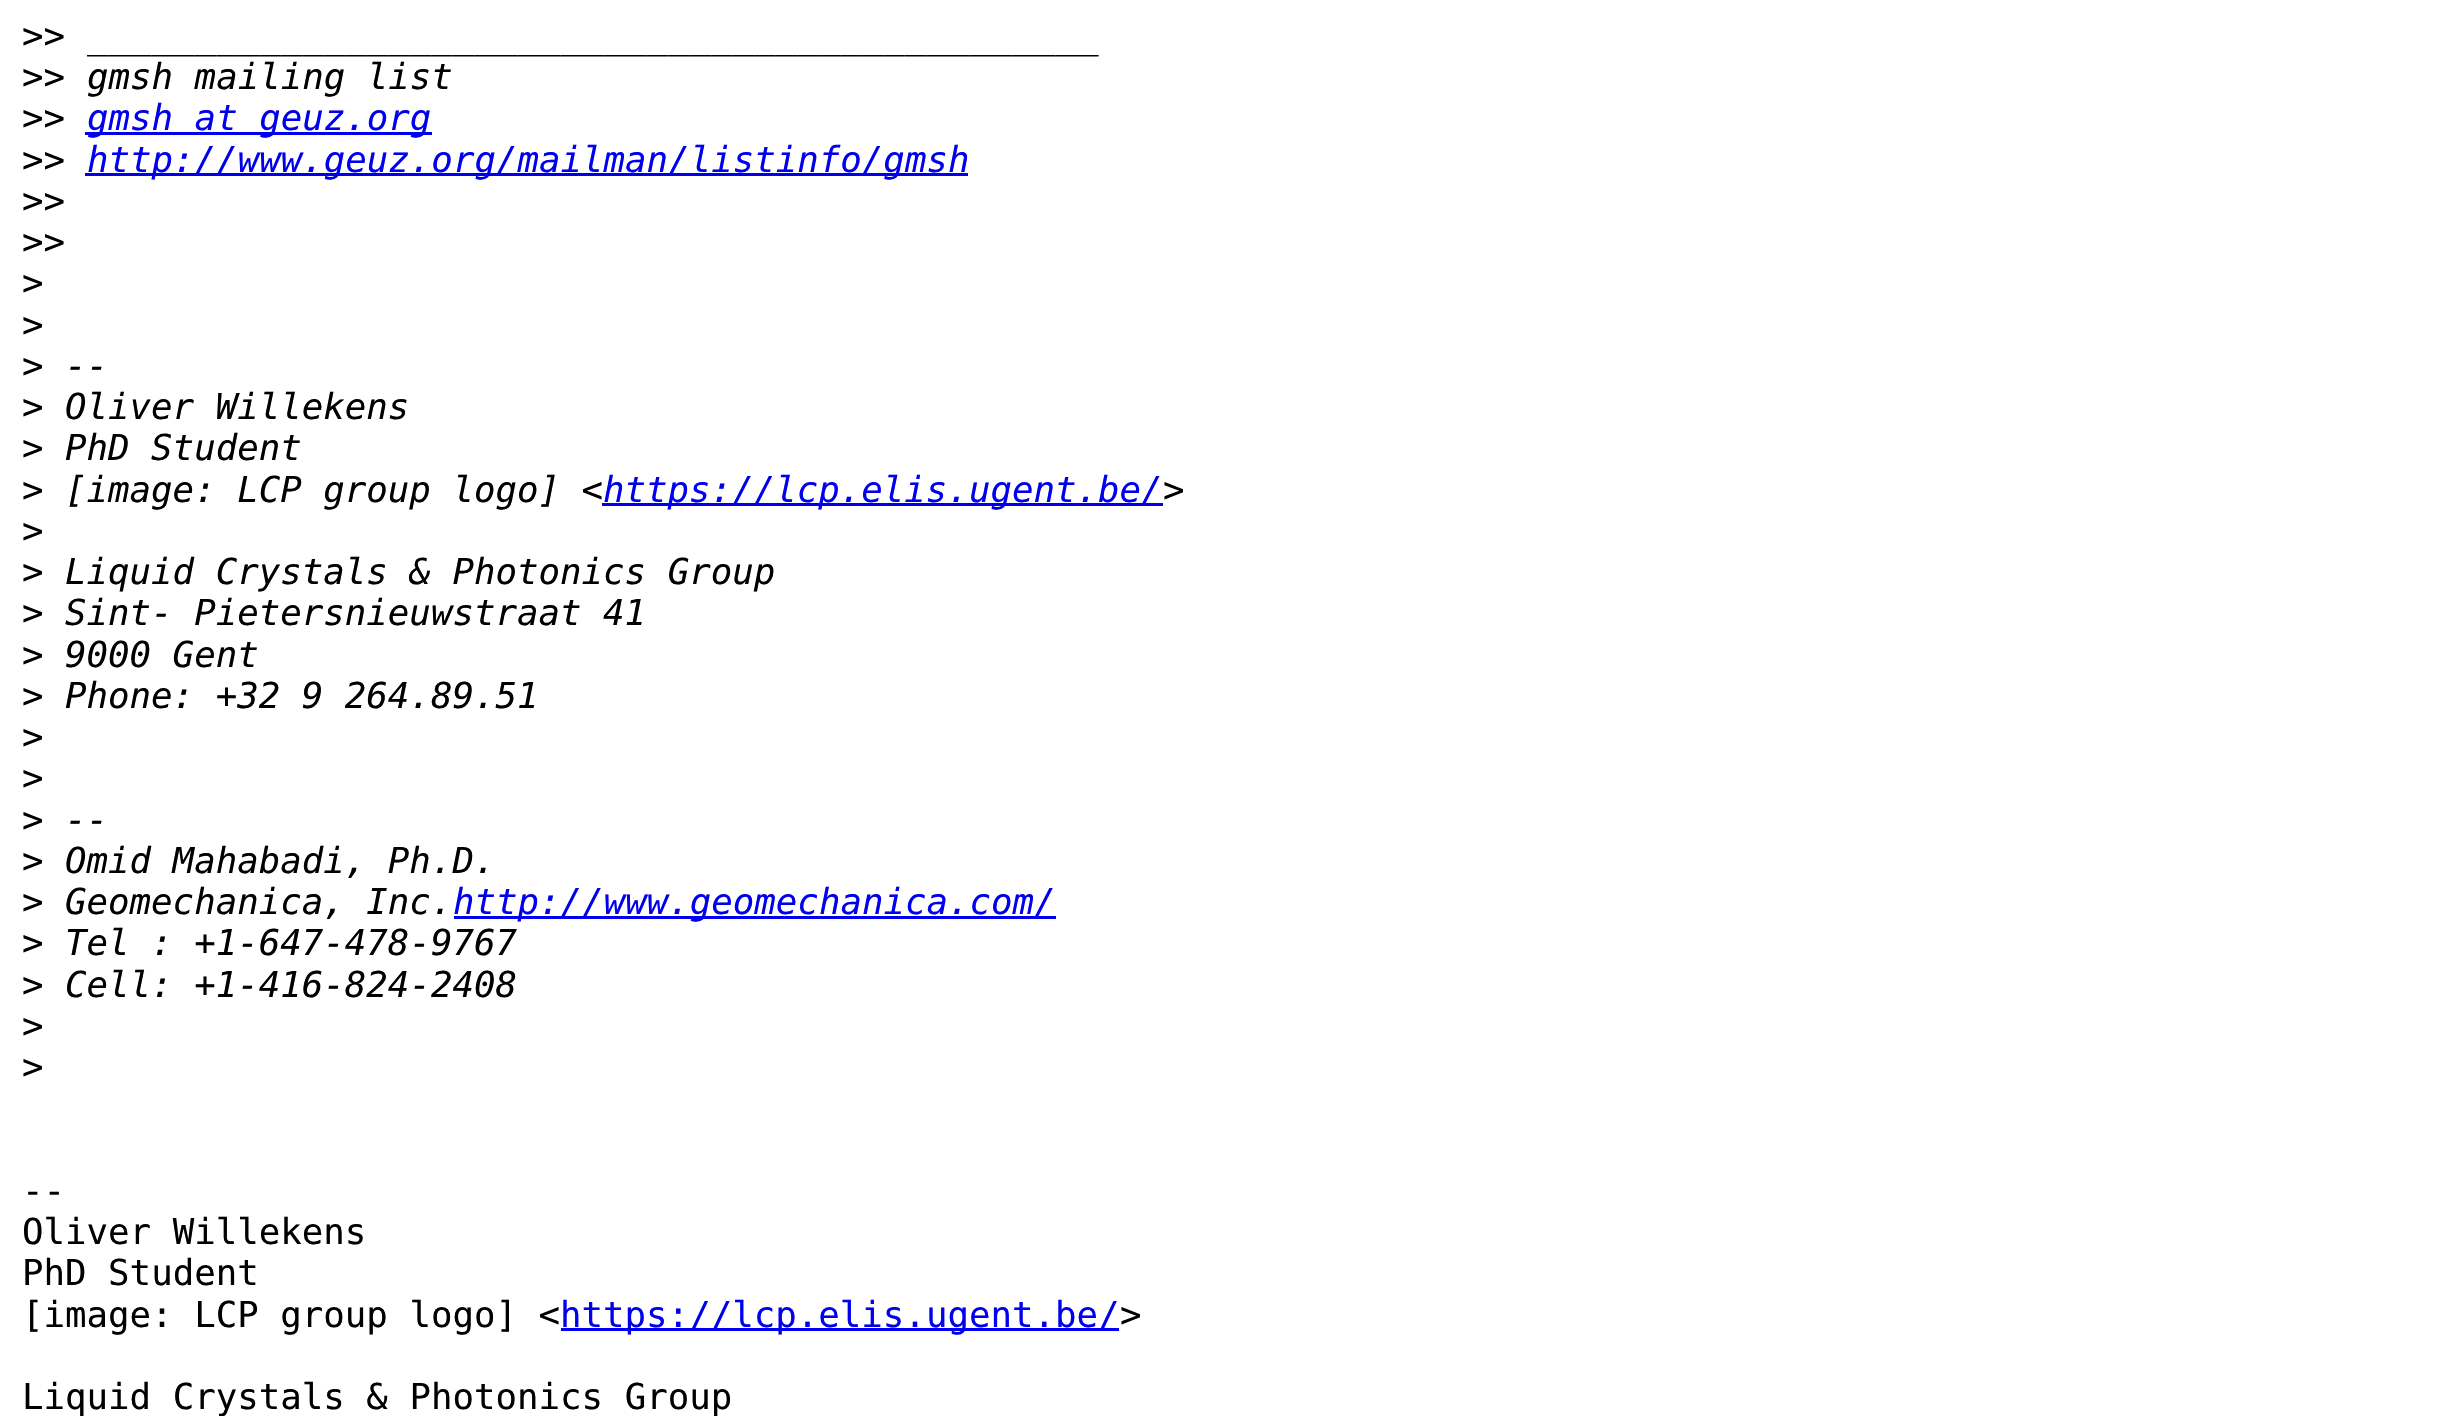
void draw(SkCanvas* c) {
SkPaint p;
p.setAntiAlias(true);
auto F=[&](const char* family, int weight, float size, bool italic = false){SkFontStyle style(weight, SkFontStyle::kNormal_Width,italic ? SkFontStyle::kItalic_Slant : SkFontStyle::kUpright_Slant);SkFont result(fontMgr->matchFamilyStyle(family, style), size);result.setSubpixel(true);return result;};
auto T=[&](const char* s, float x, float y, const SkFont& font){c->drawString(s, x, y, font, p);};
auto R=[&](float x, float y, float w, float h){c->drawRect(SkRect::MakeXYWH(x, y, w, h), p);};
c->clear(0xffffffff);
auto f1 = F("DejaVu Sans Mono",400,35.75);
p.setColor(0xff000000);
T(">>",22,48,f1);
auto f2 = F("DejaVu Sans Mono",400,35.75,true);
T("_______________________________________________",87,48,f2);
T(">>",22,89,f1);
T("gmsh mailing list",87,89,f2);
T(">>",22,130,f1);
p.setColor(0xff0000ee);
R(85,132,347,3);
T("gmsh at geuz.org",87,130,f2);
p.setColor(0xff000000);
T(">>",22,172,f1);
p.setColor(0xff0000ee);
R(85,173,883,3);
T("http://www.geuz.org/mailman/listinfo/gmsh",87,172,f2);
p.setColor(0xff000000);
T(">>",22,213,f1);
T(">>",22,254,f1);
T(">",22,295,f1);
T(">",22,337,f1);
T(">",22,378,f1);
T("--",65,378,f2);
T(">",22,419,f1);
T("Oliver Willekens",65,419,f2);
T(">",22,460,f1);
T("PhD Student",65,460,f2);
T(">",22,502,f1);
T("[image: LCP group logo] <",65,502,f2);
p.setColor(0xff0000ee);
R(602,503,561,3);
T("https://lcp.elis.ugent.be/",603,502,f2);
p.setColor(0xff000000);
T(">",1163,502,f2);
T(">",22,543,f1);
T(">",22,584,f1);
T("Liquid Crystals & Photonics Group",65,584,f2);
T(">",22,625,f1);
T("Sint- Pietersnieuwstraat 41",65,625,f2);
T(">",22,667,f1);
T("9000 Gent",65,667,f2);
T(">",22,708,f1);
T("Phone: +32 9 264.89.51",65,708,f2);
T(">",22,749,f1);
T(">",22,790,f1);
T(">",22,832,f1);
T("--",65,832,f2);
T(">",22,873,f1);
T("Omid Mahabadi, Ph.D.",65,873,f2);
T(">",22,914,f1);
T("Geomechanica, Inc.",65,914,f2);
p.setColor(0xff0000ee);
R(454,916,602,3);
T("http://www.geomechanica.com/",453,914,f2);
p.setColor(0xff000000);
T(">",22,955,f1);
T("Tel : +1-647-478-9767",65,955,f2);
T(">",22,997,f1);
T("Cell: +1-416-824-2408",65,997,f2);
T(">",22,1038,f1);
T(">",22,1079,f1);
T("--",22,1203,f1);
T("Oliver Willekens",22,1244,f1);
T("PhD Student",22,1285,f1);
T("[image: LCP group logo] <",22,1327,f1);
p.setColor(0xff0000ee);
R(561,1328,558,3);
T("https://lcp.elis.ugent.be/",560,1327,f1);
p.setColor(0xff000000);
T(">",1120,1327,f1);
T("Liquid Crystals & Photonics Group",22,1409,f1);
}
